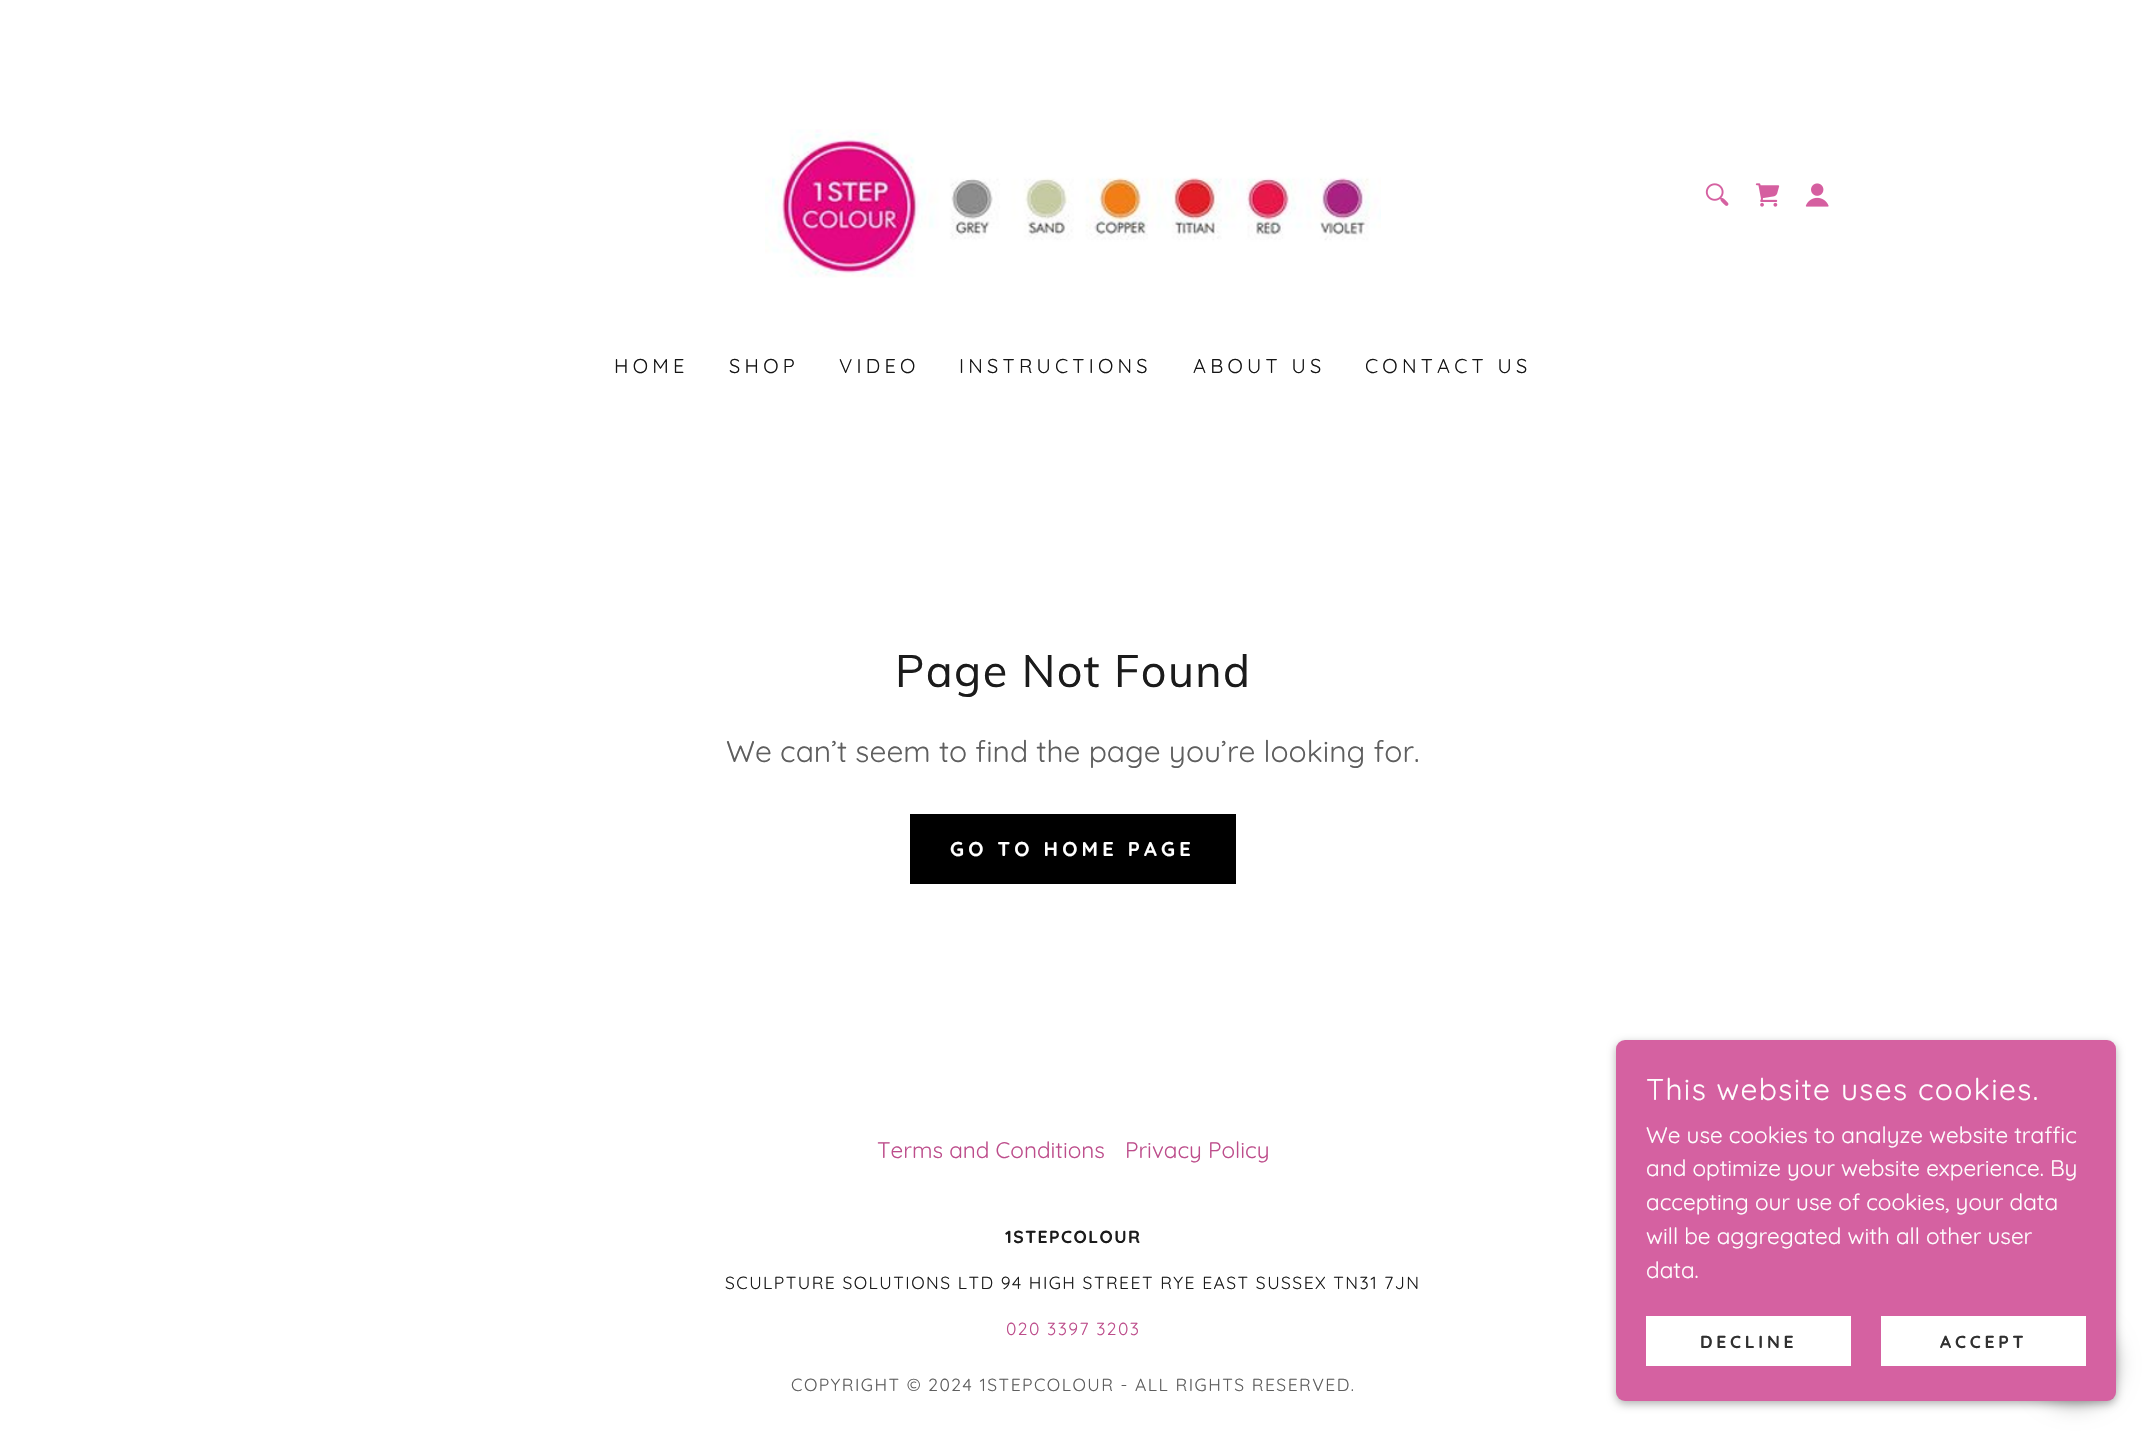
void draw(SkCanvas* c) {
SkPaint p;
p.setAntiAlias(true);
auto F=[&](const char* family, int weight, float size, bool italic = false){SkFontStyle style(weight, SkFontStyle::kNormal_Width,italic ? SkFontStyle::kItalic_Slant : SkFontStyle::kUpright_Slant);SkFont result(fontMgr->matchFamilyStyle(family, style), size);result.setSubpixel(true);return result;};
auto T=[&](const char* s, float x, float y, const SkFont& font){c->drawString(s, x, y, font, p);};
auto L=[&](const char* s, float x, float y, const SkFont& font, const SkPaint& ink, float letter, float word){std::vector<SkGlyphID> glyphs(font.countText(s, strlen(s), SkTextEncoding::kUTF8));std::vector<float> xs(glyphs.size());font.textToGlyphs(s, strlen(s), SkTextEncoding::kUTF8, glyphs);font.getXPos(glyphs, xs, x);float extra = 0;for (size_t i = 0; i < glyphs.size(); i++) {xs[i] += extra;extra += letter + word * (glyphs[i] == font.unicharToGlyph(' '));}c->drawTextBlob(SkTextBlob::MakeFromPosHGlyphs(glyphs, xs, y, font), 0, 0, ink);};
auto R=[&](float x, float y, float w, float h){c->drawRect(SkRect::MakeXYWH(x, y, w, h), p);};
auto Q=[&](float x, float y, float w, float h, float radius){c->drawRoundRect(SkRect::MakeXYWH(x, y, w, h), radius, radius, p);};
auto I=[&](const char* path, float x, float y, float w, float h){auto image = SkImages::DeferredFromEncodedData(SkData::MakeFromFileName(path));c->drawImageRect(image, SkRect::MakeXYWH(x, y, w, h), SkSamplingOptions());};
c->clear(0xffffffff);
I("1.png",765,129,616,149);
I("2.png",1705,183,24,23);
I("3.png",1755,183,25,24);
I("4.png",1805,183,24,24);
auto f1 = F("Quicksand",400,20);
p.setColor(0xff151515);
L("HOME",614,373,f1,p,4.25,0);
L("SHOP",729,373,f1,p,4.25,0);
L("VIDEO",839,373,f1,p,4.25,0);
L("INSTRUCTIONS",959,373,f1,p,4.25,0);
L("ABOUT US",1193,373,f1,p,4.25,0);
L("CONTACT US",1365,373,f1,p,4.25,0);
auto f2 = F("Muli",400,45);
p.setColor(0xff1b1b1b);
L("Page Not Found",895,687,f2,p,1.4,0);
auto f3 = F("Quicksand",400,30);
p.setColor(0xff5e5e5e);
T("We can’t seem to find the page you’re looking for.",726,762,f3);
p.setColor(0xff000000);
R(910,814,326,70);
auto f4 = F("Quicksand",700,20);
p.setColor(0xffffffff);
L("GO TO HOME PAGE",950,856,f4,p,4.25,0);
auto f5 = F("Quicksand",400,22.5);
p.setColor(0xffbd4d8b);
T("Terms and Conditions",877,1158,f5);
T("Privacy Policy",1125,1158,f5);
auto f6 = F("Quicksand",700,17.5);
p.setColor(0xff1b1b1b);
L("1STEPCOLOUR",1005,1243,f6,p,1.45,0);
auto f7 = F("Quicksand",400,17.5);
L("SCULPTURE SOLUTIONS LTD 94 HIGH STREET RYE EAST SUSSEX TN31 7JN",725,1289,f7,p,1.45,0);
p.setColor(0xffbd4d8b);
L("020 3397 3203",1006,1335,f7,p,1.45,0);
p.setColor(0xff5e5e5e);
L("COPYRIGHT © 2024 1STEPCOLOUR - ALL RIGHTS RESERVED.",791,1391,f7,p,1.45,0);
p.setColor(0x4d000000);
p.setMaskFilter(SkMaskFilter::MakeBlur(kNormal_SkBlurStyle, 4));
c->drawRoundRect(SkRect::MakeXYWH(1616,1043,500,361),9,9,p);
p.setMaskFilter(nullptr);
p.setColor(0x40000000);
p.setMaskFilter(SkMaskFilter::MakeBlur(kNormal_SkBlurStyle, 11));
c->drawRoundRect(SkRect::MakeXYWH(2035,1324,81,81),40.5,40.5,p);
p.setMaskFilter(nullptr);
p.setColor(0xffd561a1);
Q(1616,1040,500,361,9);
p.setColor(0xffffffff);
L("This website uses cookies.",1646,1100,f3,p,1.35,0);
T("We use cookies to analyze website traffic",1646,1143,f5);
T("and optimize your website experience. By",1646,1176,f5);
T("accepting our use of cookies, your data",1646,1210,f5);
T("will be aggregated with all other user",1646,1244,f5);
T("data.",1646,1278,f5);
R(1646,1316,205,50);
p.setColor(0xff303030);
L("DECLINE",1700,1348,f6,p,3.75,0);
p.setColor(0xffffffff);
R(1881,1316,205,50);
p.setColor(0xff303030);
L("ACCEPT",1940,1348,f6,p,3.75,0);
}
